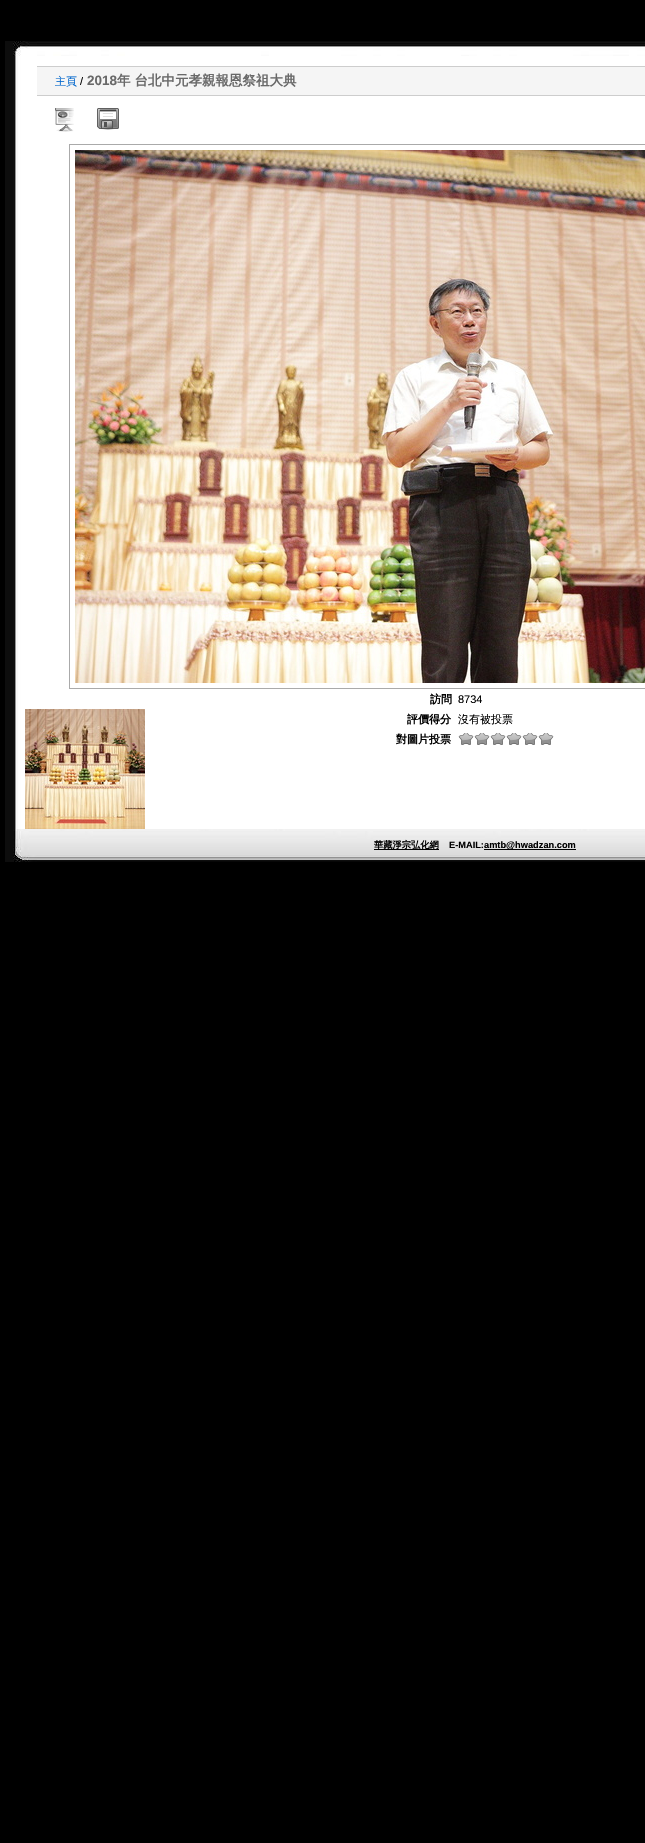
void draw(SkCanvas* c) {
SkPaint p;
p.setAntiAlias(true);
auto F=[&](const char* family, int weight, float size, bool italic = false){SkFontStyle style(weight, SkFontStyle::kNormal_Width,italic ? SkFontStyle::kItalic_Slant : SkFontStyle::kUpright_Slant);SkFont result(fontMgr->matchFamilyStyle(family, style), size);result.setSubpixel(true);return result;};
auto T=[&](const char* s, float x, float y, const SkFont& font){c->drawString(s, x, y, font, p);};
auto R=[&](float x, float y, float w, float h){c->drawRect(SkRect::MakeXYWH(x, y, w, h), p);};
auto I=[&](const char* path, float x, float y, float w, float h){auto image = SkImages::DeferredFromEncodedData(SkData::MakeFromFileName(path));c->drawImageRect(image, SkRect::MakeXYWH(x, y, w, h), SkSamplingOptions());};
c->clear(0xff000000);
I("1.png",5,41,640,821);
I("2.png",13,41,632,15);
p.setColor(0xfff5f5f5);
R(37,67,608,28);
p.setColor(0xffcdcdcd);
R(37,66,608,1);
R(37,95,608,1);
auto f1 = F("WenQuanYi Zen Hei",500,11);
p.setColor(0xff0066cc);
T("主頁",55,85,f1);
auto f2 = F("Liberation Sans",400,11);
p.setColor(0xff000000);
T("/",80,85,f2);
auto f3 = F("Liberation Sans",700,13.5);
p.setColor(0xff696969);
T("2018",87,85,f3);
auto f4 = F("WenQuanYi Zen Hei",700,13.5);
T("年 台北中元孝親報恩祭祖大典",117,85,f4);
I("3.png",55,108,19,24);
I("4.png",97,108,22,22);
p.setStroke(true);
p.setStrokeWidth(1);
p.setColor(0xffaaaaaa);
c->drawRect(SkRect::MakeXYWH(69.5,144.5,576,544),p);
I("5.png",75,150,570,533);
I("6.png",25,709,120,120);
auto f5 = F("WenQuanYi Zen Hei",700,11);
p.setStroke(false);
p.setColor(0xff000000);
T("訪問",430,703,f5);
T("8734",458,703,f2);
T("評價得分",407,723,f5);
T("沒有被投票",458,723,f1);
T("對圖片投票",396,743,f5);
I("7.png",458,733,16,12);
I("7.png",474,733,16,12);
I("7.png",490,733,16,12);
I("7.png",506,733,16,12);
I("7.png",522,733,16,12);
I("7.png",538,733,16,12);
I("8.png",13,829,632,33);
R(374,849,65,1);
auto f6 = F("WenQuanYi Zen Hei",700,9.25);
T("華藏淨宗弘化網",374,848,f6);
auto f7 = F("Liberation Sans",700,9.25);
T("E-MAIL:",449,848,f7);
R(484,849,92,1);
T("amtb@hwadzan.com",484,848,f7);
}
